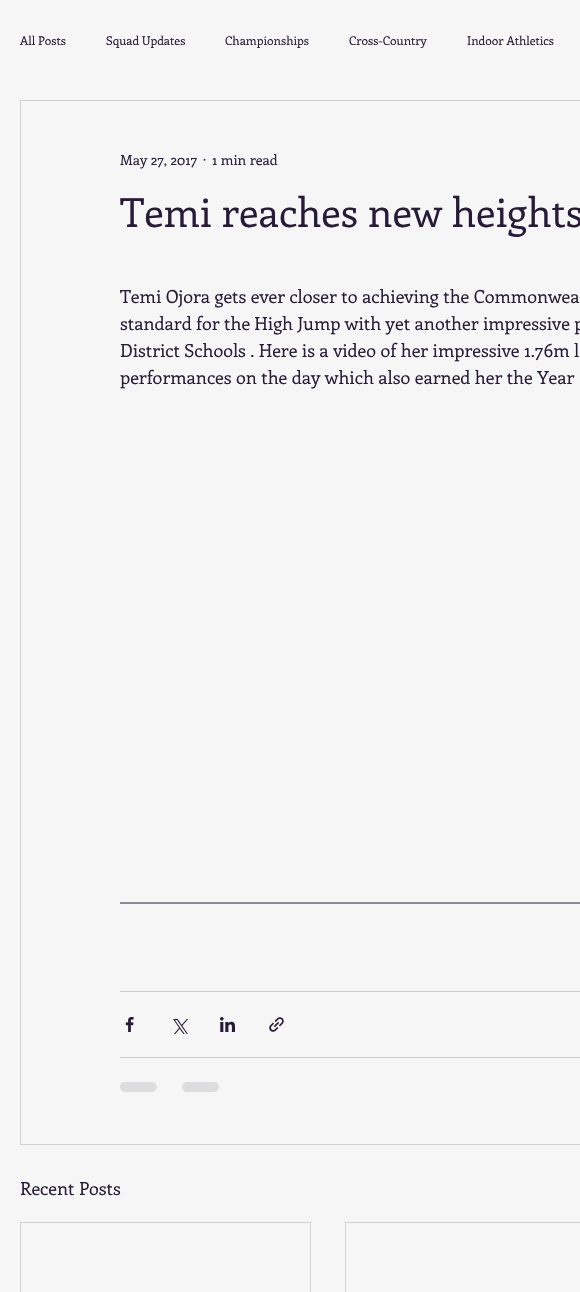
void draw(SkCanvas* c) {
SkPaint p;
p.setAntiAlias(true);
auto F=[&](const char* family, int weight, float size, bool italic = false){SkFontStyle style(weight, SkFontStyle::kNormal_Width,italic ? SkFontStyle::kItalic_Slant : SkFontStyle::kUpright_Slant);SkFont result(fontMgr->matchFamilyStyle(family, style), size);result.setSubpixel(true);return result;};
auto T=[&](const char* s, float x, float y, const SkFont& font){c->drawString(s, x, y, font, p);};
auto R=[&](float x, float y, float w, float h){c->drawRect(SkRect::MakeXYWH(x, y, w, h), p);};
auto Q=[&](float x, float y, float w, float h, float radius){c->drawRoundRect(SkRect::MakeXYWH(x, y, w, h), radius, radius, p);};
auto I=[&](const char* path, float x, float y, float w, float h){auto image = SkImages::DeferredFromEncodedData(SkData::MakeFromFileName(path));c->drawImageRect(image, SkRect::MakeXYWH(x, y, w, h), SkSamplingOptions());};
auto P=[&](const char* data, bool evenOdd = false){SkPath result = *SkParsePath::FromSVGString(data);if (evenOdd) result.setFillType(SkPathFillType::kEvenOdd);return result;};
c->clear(0xfff6f6f6);
auto f1 = F("Enriqueta",400,12);
p.setColor(0xff281a39);
T("All Posts",20,45,f1);
T("Squad Updates",106,45,f1);
T("Championships",225,45,f1);
T("Cross-Country",349,45,f1);
T("Indoor Athletics",467,45,f1);
p.setStroke(true);
p.setStrokeWidth(1);
p.setColor(0xffd1d1d1);
c->drawRect(SkRect::MakeXYWH(20.5,100.5,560,1044),p);
auto f2 = F("Enriqueta",400,14);
p.setStroke(false);
p.setColor(0xff281a39);
T("May 27, 2017",120,165,f2);
T("·",203,165,f2);
T("1 min read",212,165,f2);
auto f3 = F("Enriqueta",400,40);
T("Temi reaches new heights",120,227,f3);
auto f4 = F("Enriqueta",400,18);
T("Temi Ojora gets ever closer to achieving the Commonwea",120,303,f4);
T("standard for the High Jump with yet another impressive p",120,330,f4);
T("District Schools . Here is a video of her impressive 1.76m l",120,357,f4);
T("performances on the day which also earned her the Year",120,384,f4);
p.setStroke(true);
c->drawPath(P("M120 903h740"),p);
p.setStroke(false);
p.setColor(0xffcdcad0);
R(120,991,460,1);
I("1.png",125,1017,9,15);
I("2.png",173,1019,15,15);
I("3.png",220,1017,15,15);
I("4.png",269,1017,15,15);
R(120,1057,460,1);
p.setColor(0xffdddcdf);
Q(120,1082,37,10,5);
Q(182,1082,37,10,5);
p.setColor(0xff281a39);
T("Recent Posts",20,1195,f4);
p.setStroke(true);
p.setColor(0xffd1d1d1);
c->drawRect(SkRect::MakeXYWH(20.5,1222.5,290,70),p);
c->drawRect(SkRect::MakeXYWH(345.5,1222.5,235,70),p);
}
